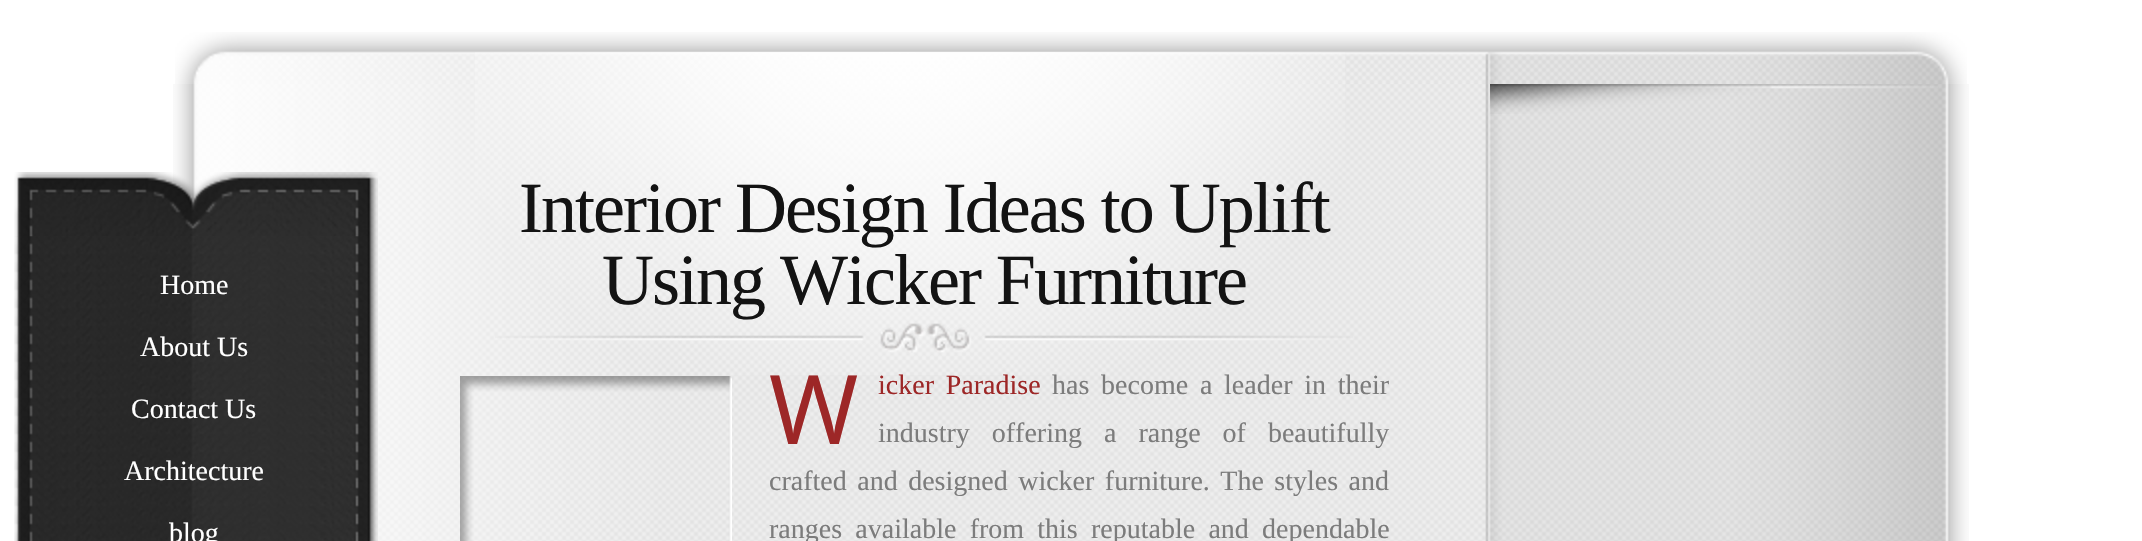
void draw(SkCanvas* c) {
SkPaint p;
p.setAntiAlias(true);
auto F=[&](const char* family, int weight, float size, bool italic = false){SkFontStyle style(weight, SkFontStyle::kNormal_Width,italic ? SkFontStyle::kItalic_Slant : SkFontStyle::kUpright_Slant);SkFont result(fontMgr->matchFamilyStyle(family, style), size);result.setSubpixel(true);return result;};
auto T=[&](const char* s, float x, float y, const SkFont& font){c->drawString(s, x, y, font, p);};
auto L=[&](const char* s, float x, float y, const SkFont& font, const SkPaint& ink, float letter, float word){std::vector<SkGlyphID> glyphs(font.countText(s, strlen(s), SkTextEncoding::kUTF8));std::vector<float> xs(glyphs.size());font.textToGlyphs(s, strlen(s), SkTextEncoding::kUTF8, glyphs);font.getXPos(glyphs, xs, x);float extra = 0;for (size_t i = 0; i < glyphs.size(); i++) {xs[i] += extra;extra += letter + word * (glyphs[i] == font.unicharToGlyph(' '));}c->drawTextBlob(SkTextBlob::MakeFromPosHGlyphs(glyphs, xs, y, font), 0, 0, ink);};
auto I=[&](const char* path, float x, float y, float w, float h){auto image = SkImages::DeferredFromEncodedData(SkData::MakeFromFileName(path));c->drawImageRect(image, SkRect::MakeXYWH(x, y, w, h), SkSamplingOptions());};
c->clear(0xffffffff);
I("1.png",175,32,1792,52);
I("4.png",173,84,1796,457);
I("2.png",14,172,364,64);
I("3.png",14,236,364,305);
auto f1 = F("Liberation Serif",400,28);
p.setColor(0xffffffff);
T("Home",160,294,f1);
T("About Us",140,356,f1);
T("Contact Us",131,418,f1);
T("Architecture",124,480,f1);
T("blog",169,542,f1);
I("5.png",1490,84,448,30);
I("6.png",475,52,870,323);
I("7.png",495,323,858,30);
auto f2 = F("Liberation Serif",400,72);
p.setColor(0xff131313);
L("Interior Design Ideas to Uplift",519,232,f2,p,-2,0);
L("Using Wicker Furniture",602,304,f2,p,-2,0);
I("8.png",460,376,272,165);
auto f3 = F("Noto Sans",400,96);
p.setColor(0xff9d2727);
T("W",769,444,f3);
L("icker Paradise",878,394,f1,p,0,4.75);
p.setColor(0xff7c7c7c);
L("has become a leader in their",1052,394,f1,p,0,4.75);
L("industry offering a range of beautifully",878,442,f1,p,0,15);
L("crafted and designed wicker furniture. The styles and",769,490,f1,p,0,3.5);
L("ranges available from this reputable and dependable",769,538,f1,p,0,6.25);
}
